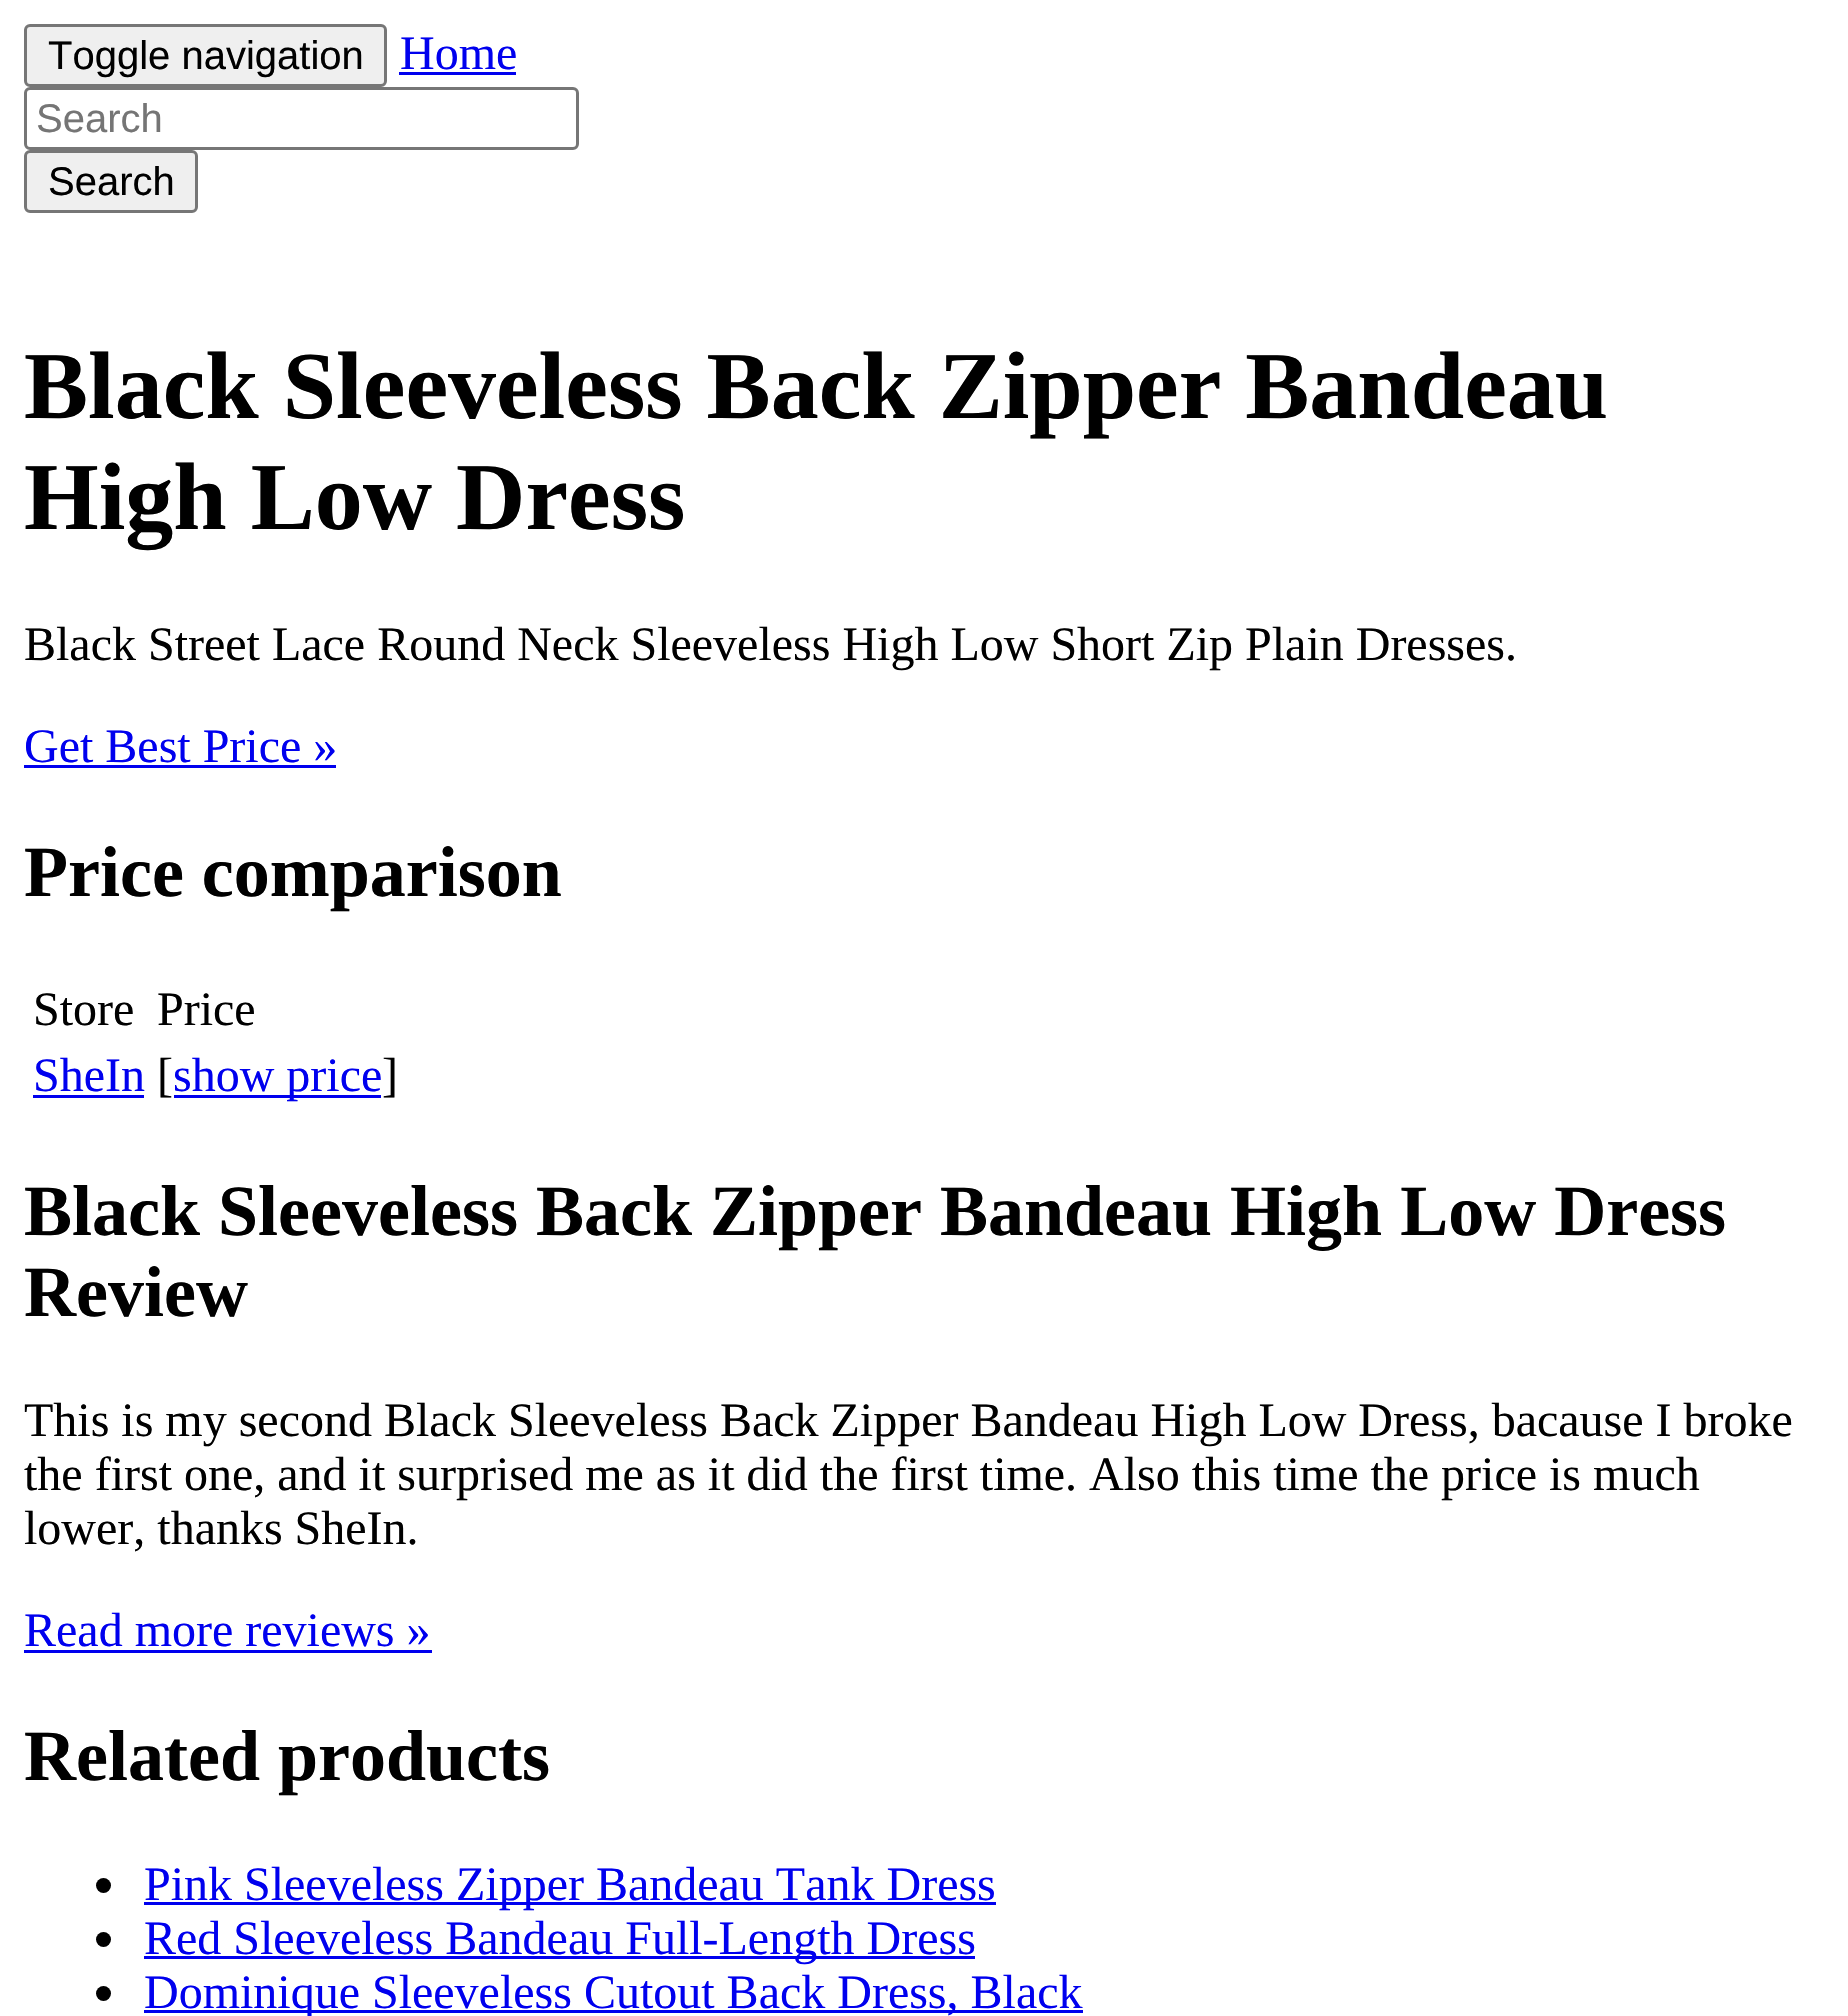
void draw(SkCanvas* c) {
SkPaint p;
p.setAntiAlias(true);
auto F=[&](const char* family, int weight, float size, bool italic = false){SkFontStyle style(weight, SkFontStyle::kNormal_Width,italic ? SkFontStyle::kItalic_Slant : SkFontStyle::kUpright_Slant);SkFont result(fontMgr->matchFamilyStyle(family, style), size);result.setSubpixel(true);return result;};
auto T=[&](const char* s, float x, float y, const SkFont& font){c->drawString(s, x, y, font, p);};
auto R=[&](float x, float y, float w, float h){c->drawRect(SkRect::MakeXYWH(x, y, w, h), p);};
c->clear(0xffffffff);
p.setColor(0xffefefef);
c->drawRoundRect(SkRect::MakeXYWH(25.5,25.5,360,60),4.5,4.5,p);
p.setStroke(true);
p.setStrokeWidth(3);
p.setColor(0xff767676);
c->drawRoundRect(SkRect::MakeXYWH(25.5,25.5,360,60),4.5,4.5,p);
auto f1 = F("Liberation Sans",400,40);
p.setStroke(false);
p.setColor(0xff000000);
T("Toggle navigation",48,69,f1);
auto f2 = F("Liberation Serif",400,48);
p.setColor(0xff0000ee);
T("Home",400,69,f2);
R(399,72,117,3);
p.setStroke(true);
p.setColor(0xff767676);
c->drawRoundRect(SkRect::MakeXYWH(25.5,88.5,552,60),4.5,4.5,p);
p.setStroke(false);
p.setColor(0xff757575);
T("Search",36,132,f1);
p.setColor(0xffefefef);
c->drawRoundRect(SkRect::MakeXYWH(25.5,151.5,171,60),4.5,4.5,p);
p.setStroke(true);
p.setColor(0xff767676);
c->drawRoundRect(SkRect::MakeXYWH(25.5,151.5,171,60),4.5,4.5,p);
p.setStroke(false);
p.setColor(0xff000000);
T("Search",48,195,f1);
auto f3 = F("Liberation Serif",700,96);
T("Black Sleeveless Back Zipper Bandeau",24,418,f3);
T("High Low Dress",24,529,f3);
T("Black Street Lace Round Neck Sleeveless High Low Short Zip Plain Dresses.",24,660,f2);
p.setColor(0xff0000ee);
T("Get Best Price »",24,762,f2);
R(24,765,312,3);
auto f4 = F("Liberation Serif",700,72);
p.setColor(0xff000000);
T("Price comparison",24,896,f4);
T("Store",33,1025,f2);
T("Price",157,1025,f2);
p.setColor(0xff0000ee);
T("SheIn",33,1091,f2);
R(33,1095,111,3);
p.setColor(0xff000000);
T("[",157,1091,f2);
p.setColor(0xff0000ee);
R(174,1095,207,3);
T("show price",173,1091,f2);
p.setColor(0xff000000);
T("]",382,1091,f2);
T("Black Sleeveless Back Zipper Bandeau High Low Dress",24,1235,f4);
T("Review",24,1316,f4);
T("This is my second Black Sleeveless Back Zipper Bandeau High Low Dress, bacause I broke",24,1436,f2);
T("the first one, and it surprised me as it did the first time. Also this time the price is much",24,1490,f2);
T("lower, thanks SheIn.",24,1544,f2);
p.setColor(0xff0000ee);
T("Read more reviews »",24,1646,f2);
R(24,1650,408,3);
p.setColor(0xff000000);
T("Related products",24,1780,f4);
c->drawCircle(103.5,1885.5,7.5,p);
p.setColor(0xff0000ee);
R(144,1902,852,3);
T("Pink Sleeveless Zipper Bandeau Tank Dress",144,1900,f2);
p.setColor(0xff000000);
c->drawCircle(103.5,1939.5,7.5,p);
p.setColor(0xff0000ee);
R(144,1956,831,3);
T("Red Sleeveless Bandeau Full-Length Dress",144,1954,f2);
p.setColor(0xff000000);
c->drawCircle(103.5,1993.5,7.5,p);
p.setColor(0xff0000ee);
R(144,2010,939,3);
T("Dominique Sleeveless Cutout Back Dress, Black",144,2008,f2);
}
